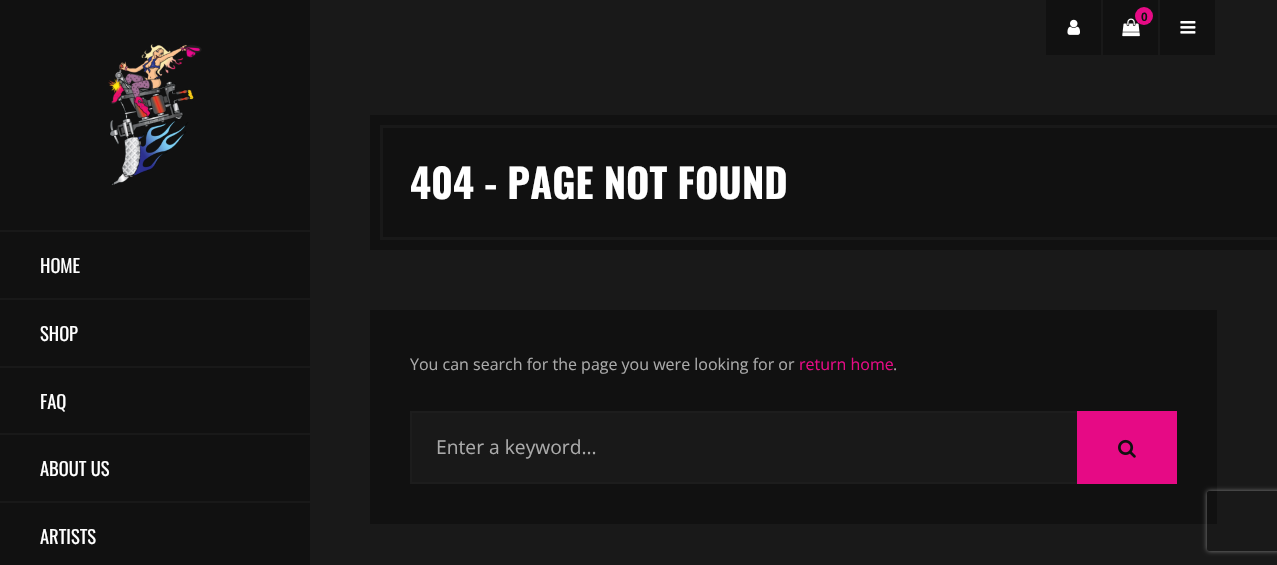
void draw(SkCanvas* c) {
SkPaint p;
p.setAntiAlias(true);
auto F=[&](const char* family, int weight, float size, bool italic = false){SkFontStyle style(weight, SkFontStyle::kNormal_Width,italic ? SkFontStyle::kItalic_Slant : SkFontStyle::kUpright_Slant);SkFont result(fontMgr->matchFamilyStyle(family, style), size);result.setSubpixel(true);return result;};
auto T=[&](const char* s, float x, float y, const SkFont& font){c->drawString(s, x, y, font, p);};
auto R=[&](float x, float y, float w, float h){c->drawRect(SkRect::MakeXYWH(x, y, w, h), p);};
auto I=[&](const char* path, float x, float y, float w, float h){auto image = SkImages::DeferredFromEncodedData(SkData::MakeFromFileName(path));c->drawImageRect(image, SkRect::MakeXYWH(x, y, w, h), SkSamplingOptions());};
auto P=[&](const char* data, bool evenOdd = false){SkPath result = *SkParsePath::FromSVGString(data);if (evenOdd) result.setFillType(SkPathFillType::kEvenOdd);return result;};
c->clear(0xff191919);
p.setColor(0xff111111);
R(0,0,310,565);
I("1.png",108,44,94,141);
p.setColor(0xff191919);
R(0,230,310,2);
R(0,298,310,2);
auto f1 = F("Oswald",400,18.5);
p.setColor(0xffffffff);
T("HOME",40,273,f1);
p.setColor(0xff191919);
R(0,366,310,2);
p.setColor(0xffffffff);
T("SHOP",40,341,f1);
p.setColor(0xff191919);
R(0,433,310,2);
p.setColor(0xffffffff);
T("FAQ",40,409,f1);
p.setColor(0xff191919);
R(0,501,310,2);
p.setColor(0xffffffff);
T("ABOUT US",40,476,f1);
T("ARTISTS",40,544,f1);
p.setColor(0xff111111);
R(1046,0,55,55);
I("2.png",1067,19,13,16);
R(1103,0,55,55);
I("3.png",1122,18,18,19);
p.setColor(0xffe60a85);
c->drawCircle(1144,16,9,p);
auto f2 = F("Liberation Sans",700,12);
p.setColor(0xff111111);
T("0",1141,21,f2);
R(1160,0,55,55);
I("4.png",1180,21,16,13);
R(370,115,907,135);
p.setStroke(true);
p.setStrokeWidth(3);
p.setColor(0xff191919);
c->drawRect(SkRect::MakeXYWH(381.5,126.5,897,112),p);
auto f3 = F("Oswald",700,40);
p.setStroke(false);
p.setColor(0xffffffff);
T("404 - PAGE NOT FOUND",410,199,f3);
p.setColor(0xff111111);
R(370,310,847,214);
auto f4 = F("Open Sans",400,16);
p.setColor(0xffaaaaaa);
T("You can search for the page you were looking for or",410,370,f4);
p.setColor(0xffe60a85);
T("return home",799,370,f4);
p.setColor(0xffaaaaaa);
T(".",893,370,f4);
p.setColor(0xff191919);
R(412,413,665,69);
p.setColor(0xff1d1d1d);
c->drawPath(P("M410 411h668v2h-666z"),p);
c->drawPath(P("M1078 484h-668l2-2h666z"),p);
p.setColor(0x0dffffff);
c->drawPath(P("M410 484v-73l2 2v69z"),p);
auto f5 = F("Open Sans",400,19.25);
p.setColor(0xffaaaaaa);
T("Enter a keyword...",436,454,f5);
p.setColor(0xffe60a85);
R(1077,411,100,73);
I("5.png",1118,439,18,19);
c->save();
c->clipPath(P("M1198 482h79v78h-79zm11 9h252c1 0 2 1 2 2v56c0 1-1 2-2 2h-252c-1 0-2-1-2-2v-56c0-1 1-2 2-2z",true),true);
p.setColor(0xff808080);
p.setMaskFilter(SkMaskFilter::MakeBlur(kNormal_SkBlurStyle, 2.5));
c->drawRoundRect(SkRect::MakeXYWH(1207,491,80,60),2,2,p);
p.setMaskFilter(nullptr);
c->restore();
}
